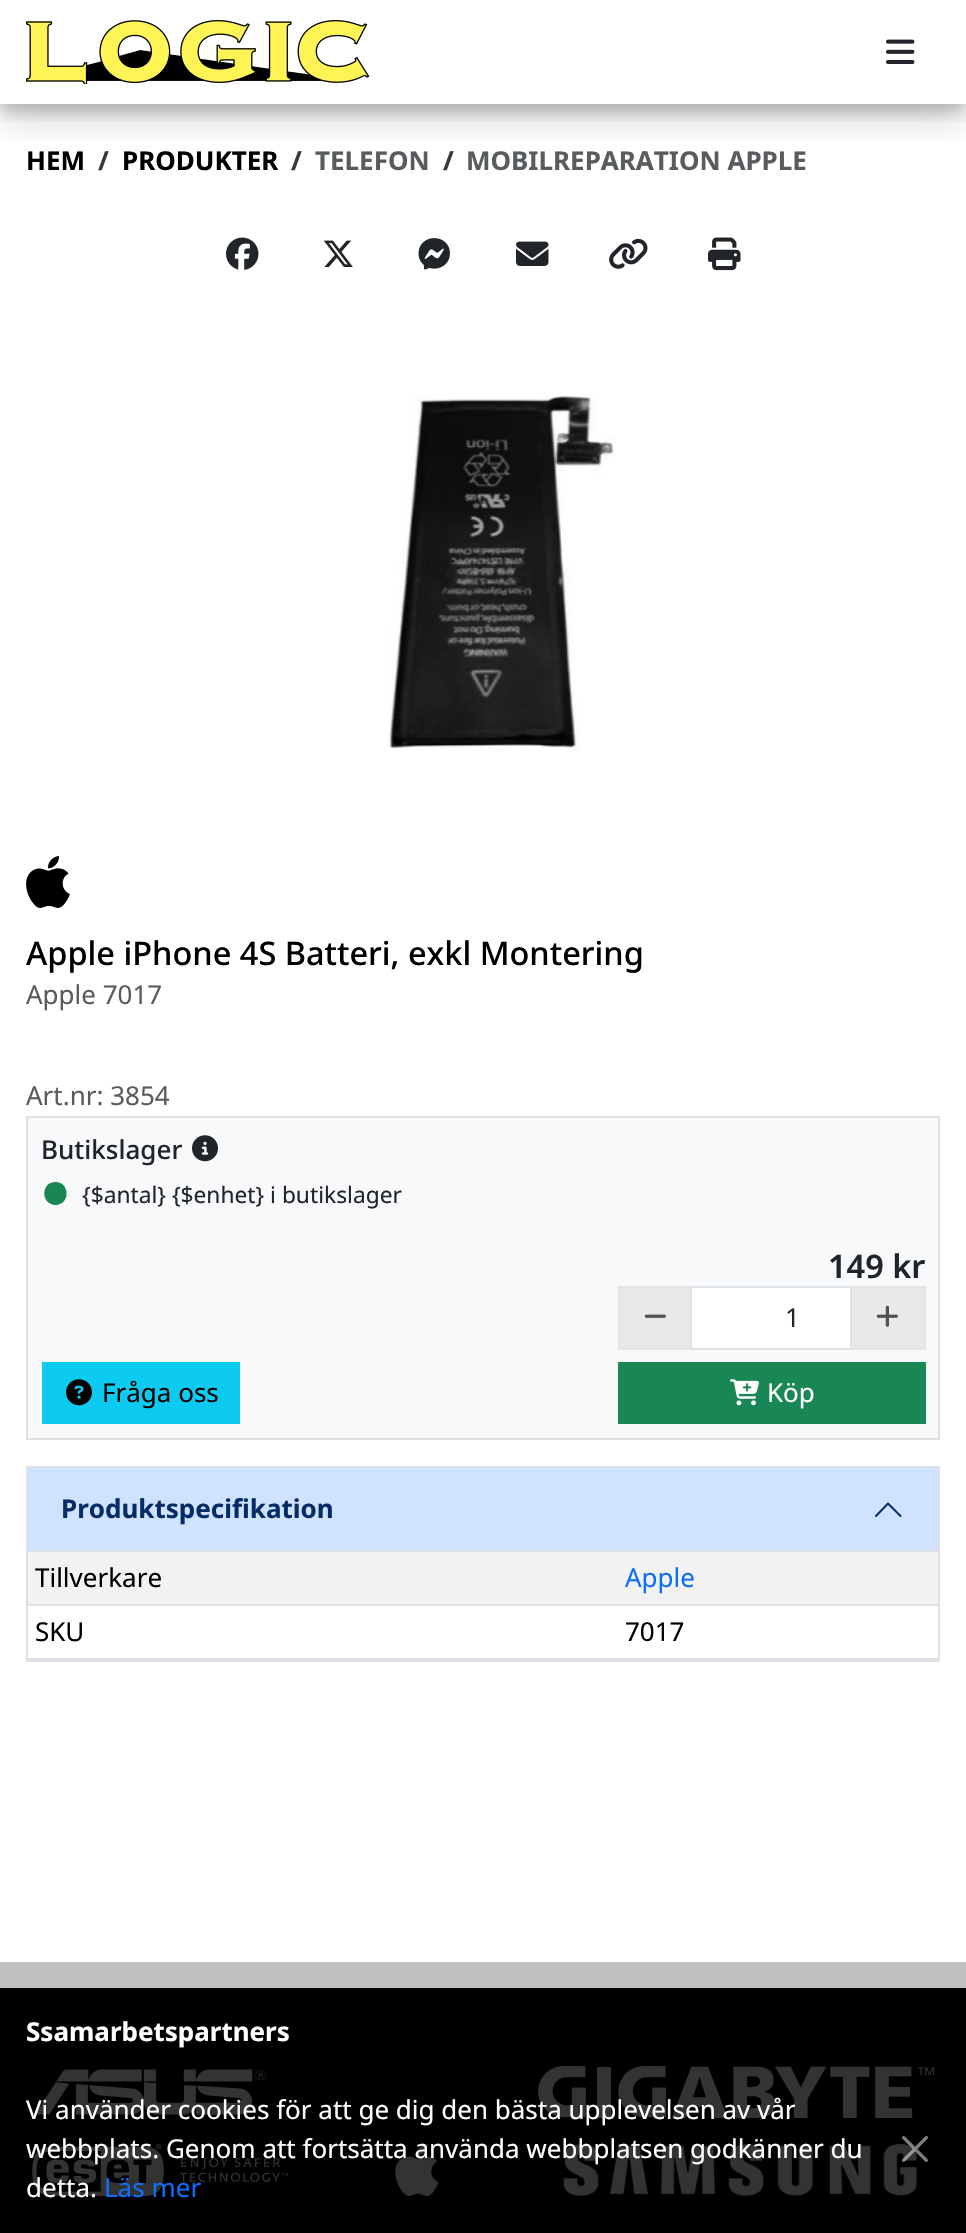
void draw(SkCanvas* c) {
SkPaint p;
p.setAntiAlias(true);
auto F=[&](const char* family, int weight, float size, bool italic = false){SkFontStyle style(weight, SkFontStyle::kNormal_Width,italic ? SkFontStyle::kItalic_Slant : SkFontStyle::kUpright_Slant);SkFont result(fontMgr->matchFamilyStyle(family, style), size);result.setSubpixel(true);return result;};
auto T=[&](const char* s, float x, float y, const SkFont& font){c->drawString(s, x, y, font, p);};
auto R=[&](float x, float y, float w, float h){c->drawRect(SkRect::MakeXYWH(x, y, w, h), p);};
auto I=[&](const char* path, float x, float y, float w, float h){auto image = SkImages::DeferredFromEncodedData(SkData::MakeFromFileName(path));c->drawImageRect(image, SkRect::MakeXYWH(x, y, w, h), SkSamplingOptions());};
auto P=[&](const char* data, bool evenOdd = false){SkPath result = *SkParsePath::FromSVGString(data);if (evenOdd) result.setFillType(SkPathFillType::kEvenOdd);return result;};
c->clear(0xffffffff);
c->save();
c->clipRect(SkRect::MakeXYWH(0,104,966,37));
p.setColor(0x30000000);
p.setMaskFilter(SkMaskFilter::MakeBlur(kNormal_SkBlurStyle, 20));
c->drawRect(SkRect::MakeXYWH(0,12,966,104),p);
p.setMaskFilter(nullptr);
c->restore();
c->save();
c->clipRect(SkRect::MakeXYWH(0,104,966,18));
p.setColor(0x33000000);
p.setMaskFilter(SkMaskFilter::MakeBlur(kNormal_SkBlurStyle, 8));
c->drawRect(SkRect::MakeXYWH(0,8,966,104),p);
p.setMaskFilter(nullptr);
c->restore();
I("1.png",26,20,344,64);
I("2.png",886,39,29,25);
auto f1 = F("Noto Sans",700,26);
p.setColor(0xff000000);
T("HEM",26,170,f1);
p.setColor(0xff343a40);
T("/",98,170,f1);
p.setColor(0xff000000);
T("PRODUKTER",122,170,f1);
p.setColor(0xff343a40);
T("/",291,170,f1);
p.setColor(0xff595c5f);
T("TELEFON",315,170,f1);
p.setColor(0xff343a40);
T("/",443,170,f1);
p.setColor(0xff595c5f);
T("MOBILREPARATION APPLE",466,170,f1);
I("3.png",226,237,33,33);
I("4.png",323,240,30,27);
I("5.png",418,238,32,32);
I("6.png",516,241,33,25);
I("7.png",609,238,39,31);
I("8.png",708,237,33,34);
I("9.png",389,395,227,355);
I("10.png",26,856,44,52);
auto f2 = F("Noto Sans",500,32.5);
p.setColor(0xff000000);
T("Apple iPhone 4S Batteri, exkl Montering",26,965,f2);
auto f3 = F("Noto Sans",400,26);
p.setColor(0xff595c5f);
T("Apple 7017",26,1004,f3);
T("Art.nr: 3854",26,1105,f3);
p.setColor(0xfff8f9fa);
c->drawRect(SkRect::MakeXYWH(27,1117,912,322),p);
p.setStroke(true);
p.setStrokeWidth(2);
p.setColor(0xffdfe0e1);
c->drawRect(SkRect::MakeXYWH(27,1117,912,322),p);
auto f4 = F("Noto Sans",500,26);
p.setStroke(false);
p.setColor(0xff212529);
T("Butikslager",41,1159,f4);
I("11.png",192,1135,26,27);
p.setColor(0xff198754);
c->drawPath(P("M55.5 1205c15-.5 14.5-23 0-23c-15 0-15 22.5 0 23z"),p);
auto f5 = F("Noto Sans",400,22.75);
p.setColor(0xff212529);
T("{$antal} {$enhet} i butikslager",82,1203,f5);
p.setColor(0xff0dcaf0);
R(42,1362,198,62);
I("12.png",66,1379,26,27);
p.setColor(0xff000000);
T("Fråga oss",102,1402,f3);
auto f6 = F("Noto Sans",600,32.5);
p.setColor(0xff212529);
T("149 kr",828,1278,f6);
p.setColor(0xa6dfe1e2);
R(618,1286,72,64);
p.setColor(0xffffffff);
c->drawRect(SkRect::MakeXYWH(691,1287,160,62),p);
p.setStroke(true);
p.setColor(0xffdee2e6);
c->drawRect(SkRect::MakeXYWH(691,1287,160,62),p);
p.setColor(0xa6dfe1e2);
c->drawRect(SkRect::MakeXYWH(619,1287,72,62),p);
I("13.png",644,1314,22,4);
p.setStroke(false);
p.setColor(0xff212529);
T("1",785,1327,f3);
p.setColor(0xa6dfe1e2);
R(852,1286,74,64);
p.setStroke(true);
c->drawRect(SkRect::MakeXYWH(851,1287,74,62),p);
I("14.png",876,1305,22,22);
p.setStroke(false);
p.setColor(0xff198754);
R(618,1362,308,62);
I("15.png",730,1379,29,27);
p.setColor(0xffffffff);
T("Köp",767,1402,f3);
p.setStroke(true);
p.setColor(0xffdee2e6);
c->drawRect(SkRect::MakeXYWH(27,1467,912,194),p);
p.setStroke(false);
p.setColor(0xffcfe2ff);
R(28,1468,910,82);
p.setColor(0xffdee2e6);
R(28,1550,910,2);
p.setColor(0xff052c65);
T("Produktspecifikation",61,1518,f1);
p.setStroke(true);
p.setStrokeCap(SkPaint::kRound_Cap);
p.setStrokeJoin(SkPaint::kRound_Join);
c->drawPath(P("M900.5 1516l-12.5-12.5l-12 12.5"),p);
p.setStroke(false);
p.setColor(0xfff2f2f2);
R(28,1552,910,52);
p.setColor(0xff000000);
T("Tillverkare",35,1587,f3);
p.setColor(0xffdee2e6);
R(28,1604,912,2);
p.setColor(0xff0d6efd);
T("Apple",625,1587,f3);
p.setColor(0xff000000);
T("SKU",35,1641,f3);
p.setColor(0xffdee2e6);
R(28,1658,912,2);
p.setColor(0xff000000);
T("7017",625,1641,f3);
p.setColor(0xffc0c0c0);
R(0,1962,966,26);
p.setColor(0xff000000);
R(0,1988,966,245);
p.setColor(0xffffffff);
T("Ssamarbetspartners",26,2041,f1);
I("16.png",35,2069,231,46);
I("17.png",538,2066,396,52);
I("18.png",32,2144,256,52);
I("19.png",395,2144,44,52);
I("20.png",563,2144,354,52);
T("Vi använder cookies för att ge dig den bästa upplevelsen av vår",26,2119,f3);
T("webbplats. Genom att fortsätta använda webbplatsen godkänner du",26,2158,f3);
T("detta.",26,2197,f3);
p.setColor(0xff0d6efd);
T("Läs mer",104,2197,f3);
I("21.png",902,2136,26,26);
}
